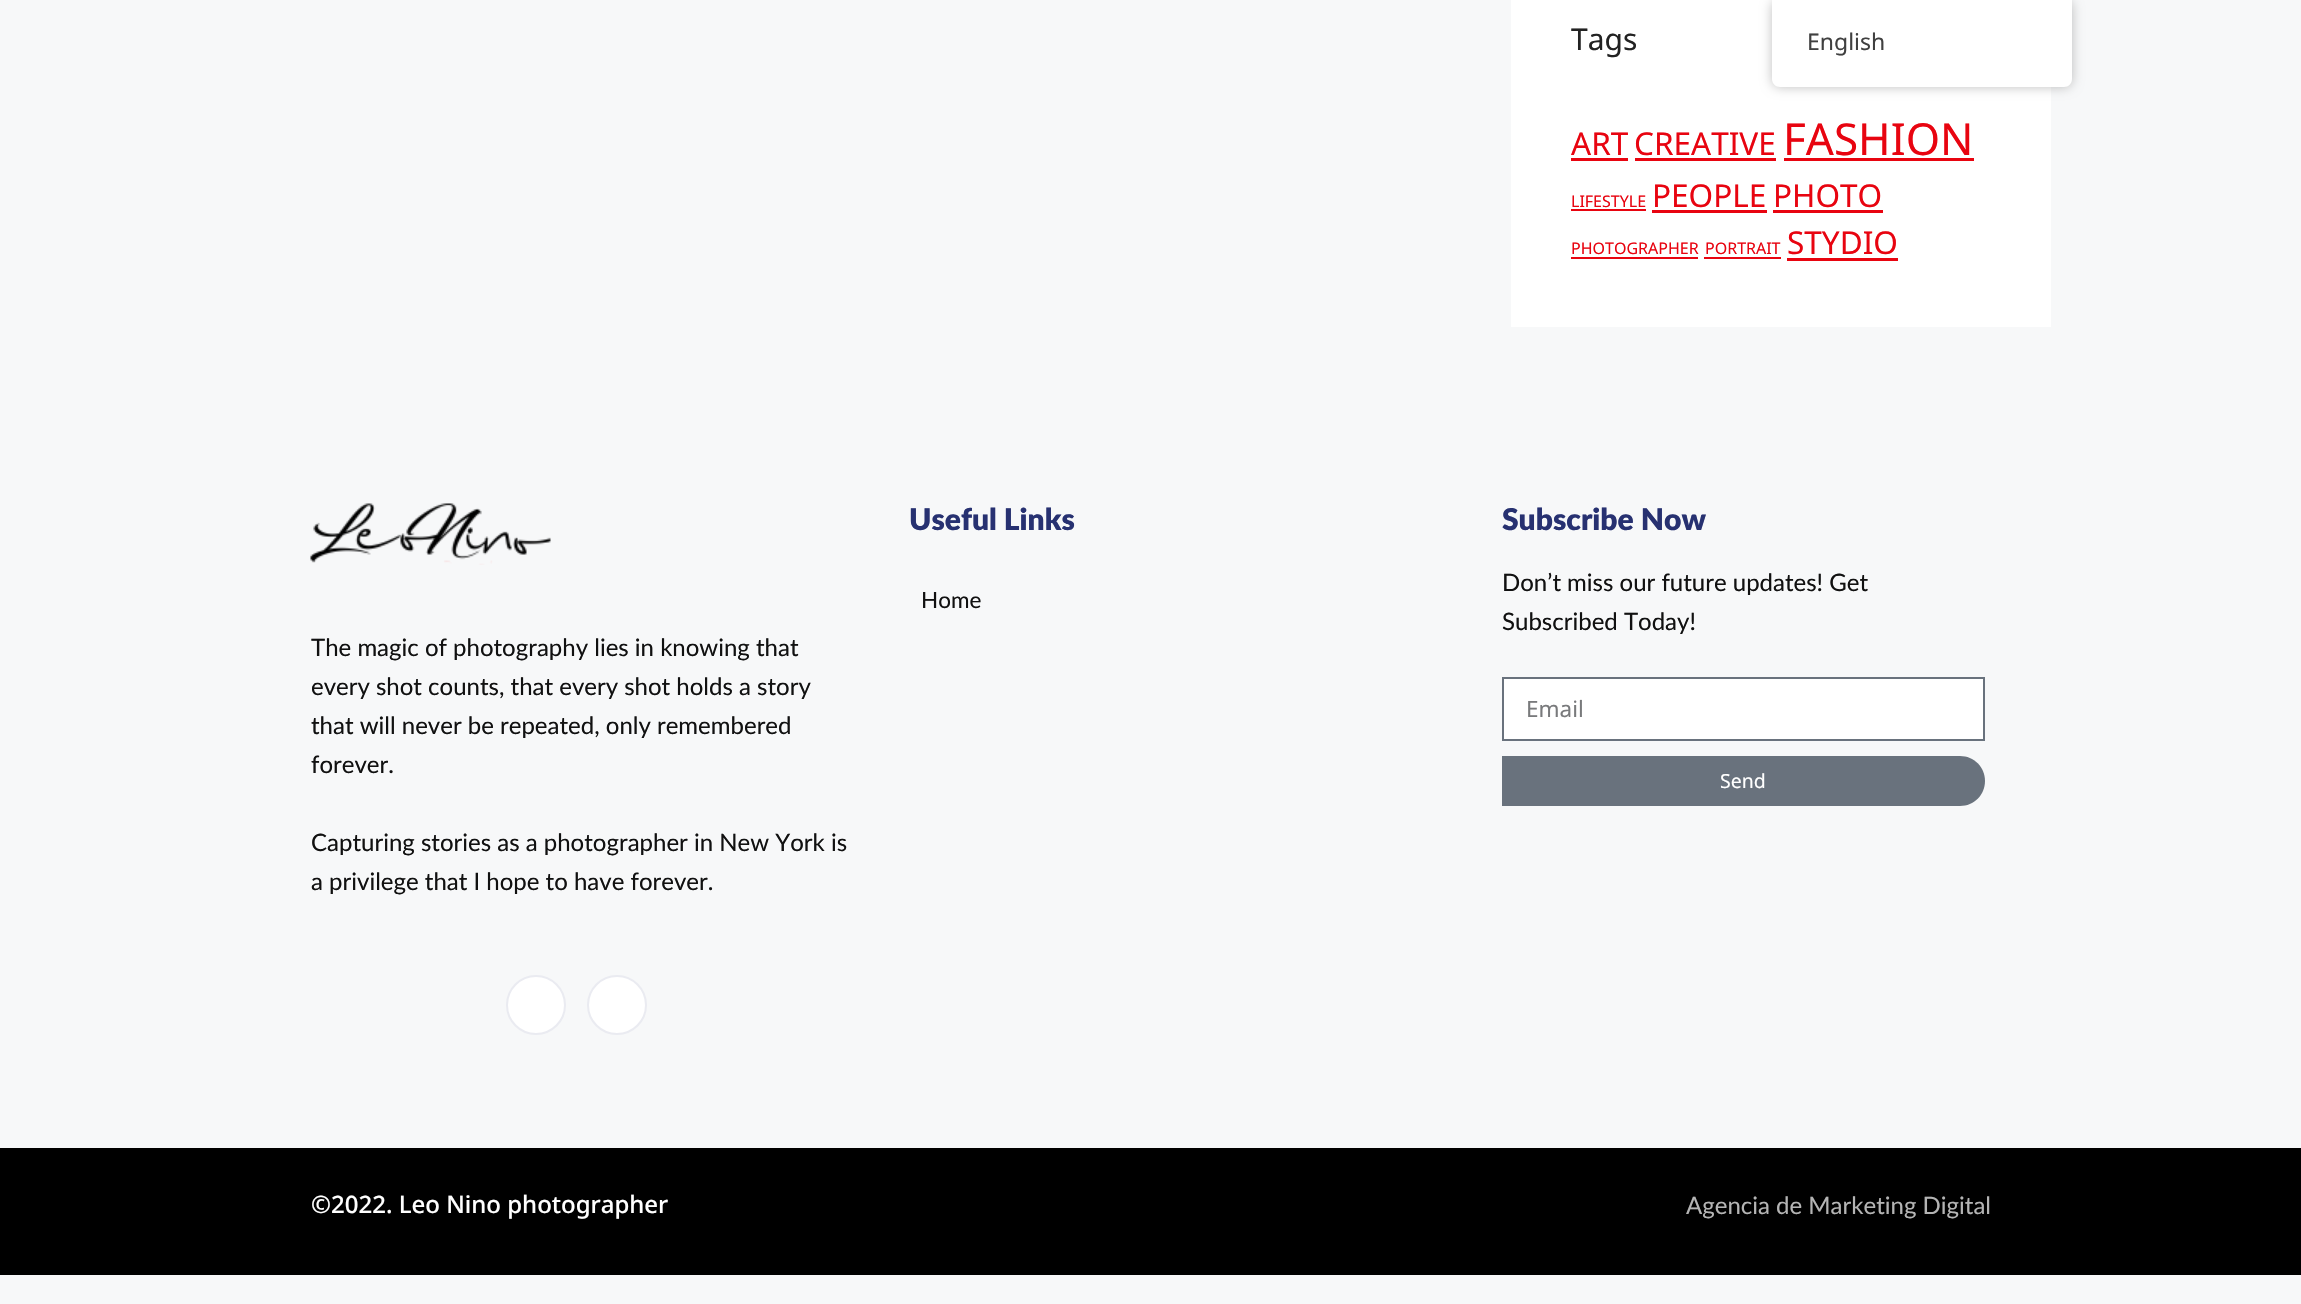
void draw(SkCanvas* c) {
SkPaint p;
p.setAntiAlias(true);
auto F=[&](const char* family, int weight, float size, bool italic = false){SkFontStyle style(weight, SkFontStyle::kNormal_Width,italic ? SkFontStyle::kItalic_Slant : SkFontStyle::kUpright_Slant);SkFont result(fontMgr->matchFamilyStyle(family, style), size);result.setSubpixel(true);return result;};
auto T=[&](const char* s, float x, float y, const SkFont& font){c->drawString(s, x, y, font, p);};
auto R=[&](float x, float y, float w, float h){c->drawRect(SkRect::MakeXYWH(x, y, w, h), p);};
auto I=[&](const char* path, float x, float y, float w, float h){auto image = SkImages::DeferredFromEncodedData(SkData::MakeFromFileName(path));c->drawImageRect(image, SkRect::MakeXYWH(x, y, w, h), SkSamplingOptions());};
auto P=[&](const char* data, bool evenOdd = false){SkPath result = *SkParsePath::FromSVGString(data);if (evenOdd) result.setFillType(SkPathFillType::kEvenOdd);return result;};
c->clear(0xfff7f8f9);
p.setColor(0xffffffff);
R(1511,0,540,327);
auto f1 = F("Noto Sans",400,30);
p.setColor(0xff222222);
T("Tags",1571,50,f1);
auto f2 = F("Noto Sans",400,31.5);
p.setColor(0xffe80410);
T("ART",1571,155,f2);
R(1571,158,57,3);
T("CREATIVE",1634,155,f2);
R(1635,158,141,3);
auto f3 = F("Noto Sans",400,44);
T("FASHION",1783,155,f3);
R(1784,158,190,3);
auto f4 = F("Noto Sans",400,16);
T("LIFESTYLE",1571,207,f4);
R(1571,209,75,2);
T("PEOPLE",1652,207,f2);
R(1652,210,115,3);
T("PHOTO",1773,207,f2);
R(1773,210,110,3);
T("PHOTOGRAPHER",1571,254,f4);
R(1571,257,127,2);
T("PORTRAIT",1705,254,f4);
R(1704,257,77,2);
T("STYDIO",1787,254,f2);
R(1787,258,111,3);
p.setColor(0x40000000);
p.setMaskFilter(SkMaskFilter::MakeBlur(kNormal_SkBlurStyle, 6));
c->drawRoundRect(SkRect::MakeXYWH(1772,0,300,87),8,8,p);
p.setMaskFilter(nullptr);
p.setColor(0xffffffff);
c->drawPath(P("M1772 0h300v79c0 4.5-3.5 8-8 8h-284c-4.5 0-8-3.5-8-8z"),p);
auto f5 = F("Noto Sans",400,23);
p.setColor(0xff404040);
T("English",1807,50,f5);
I("1.png",310,503,241,62);
auto f6 = F("Lato",400,24);
p.setColor(0xff111111);
T("The magic of photography lies in knowing that",311,656,f6);
T("every shot counts, that every shot holds a story",311,695,f6);
T("that will never be repeated, only remembered",311,734,f6);
T("forever.",311,773,f6);
T("Capturing stories as a photographer in New York is",311,851,f6);
T("a privilege that I hope to have forever.",311,890,f6);
p.setColor(0xffffffff);
c->drawCircle(536,1005,29,p);
p.setStroke(true);
p.setStrokeWidth(2);
p.setColor(0xffeaebf1);
c->drawCircle(536,1005,29,p);
p.setStroke(false);
p.setColor(0xffffffff);
c->drawCircle(617,1005,29,p);
p.setStroke(true);
p.setColor(0xffeaebf1);
c->drawCircle(617,1005,29,p);
auto f7 = F("Lato",800,30);
p.setStroke(false);
p.setColor(0xff273171);
T("Useful Links",909,530,f7);
auto f8 = F("Lato",400,22.5);
p.setColor(0xff111111);
T("Home",921,608,f8);
p.setColor(0xff273171);
T("Subscribe Now",1502,530,f7);
p.setColor(0xff111111);
T("Don’t miss our future updates! Get",1502,591,f6);
T("Subscribed Today!",1502,630,f6);
p.setColor(0xffffffff);
c->drawRect(SkRect::MakeXYWH(1503,678,481,62),p);
p.setStroke(true);
p.setColor(0xff69727d);
c->drawRect(SkRect::MakeXYWH(1503,678,481,62),p);
auto f9 = F("Noto Sans",400,22.5);
p.setStroke(false);
p.setColor(0xff797a7c);
T("Email",1526,717,f9);
p.setColor(0xff69727d);
c->drawPath(P("M1502 756h458c14 0 25 11 25 25c0 14-11 25-25 25h-458z"),p);
auto f10 = F("Noto Sans",400,19.5);
p.setColor(0xffffffff);
T("Send",1720,788,f10);
p.setColor(0xff000000);
R(0,1148,2301,127);
auto f11 = F("Noto Sans",500,24);
p.setColor(0xffffffff);
T("©2022. Leo Nino photographer",311,1213,f11);
p.setColor(0xffb4b4b4);
T("Agencia de Marketing Digital",1686,1214,f6);
}
